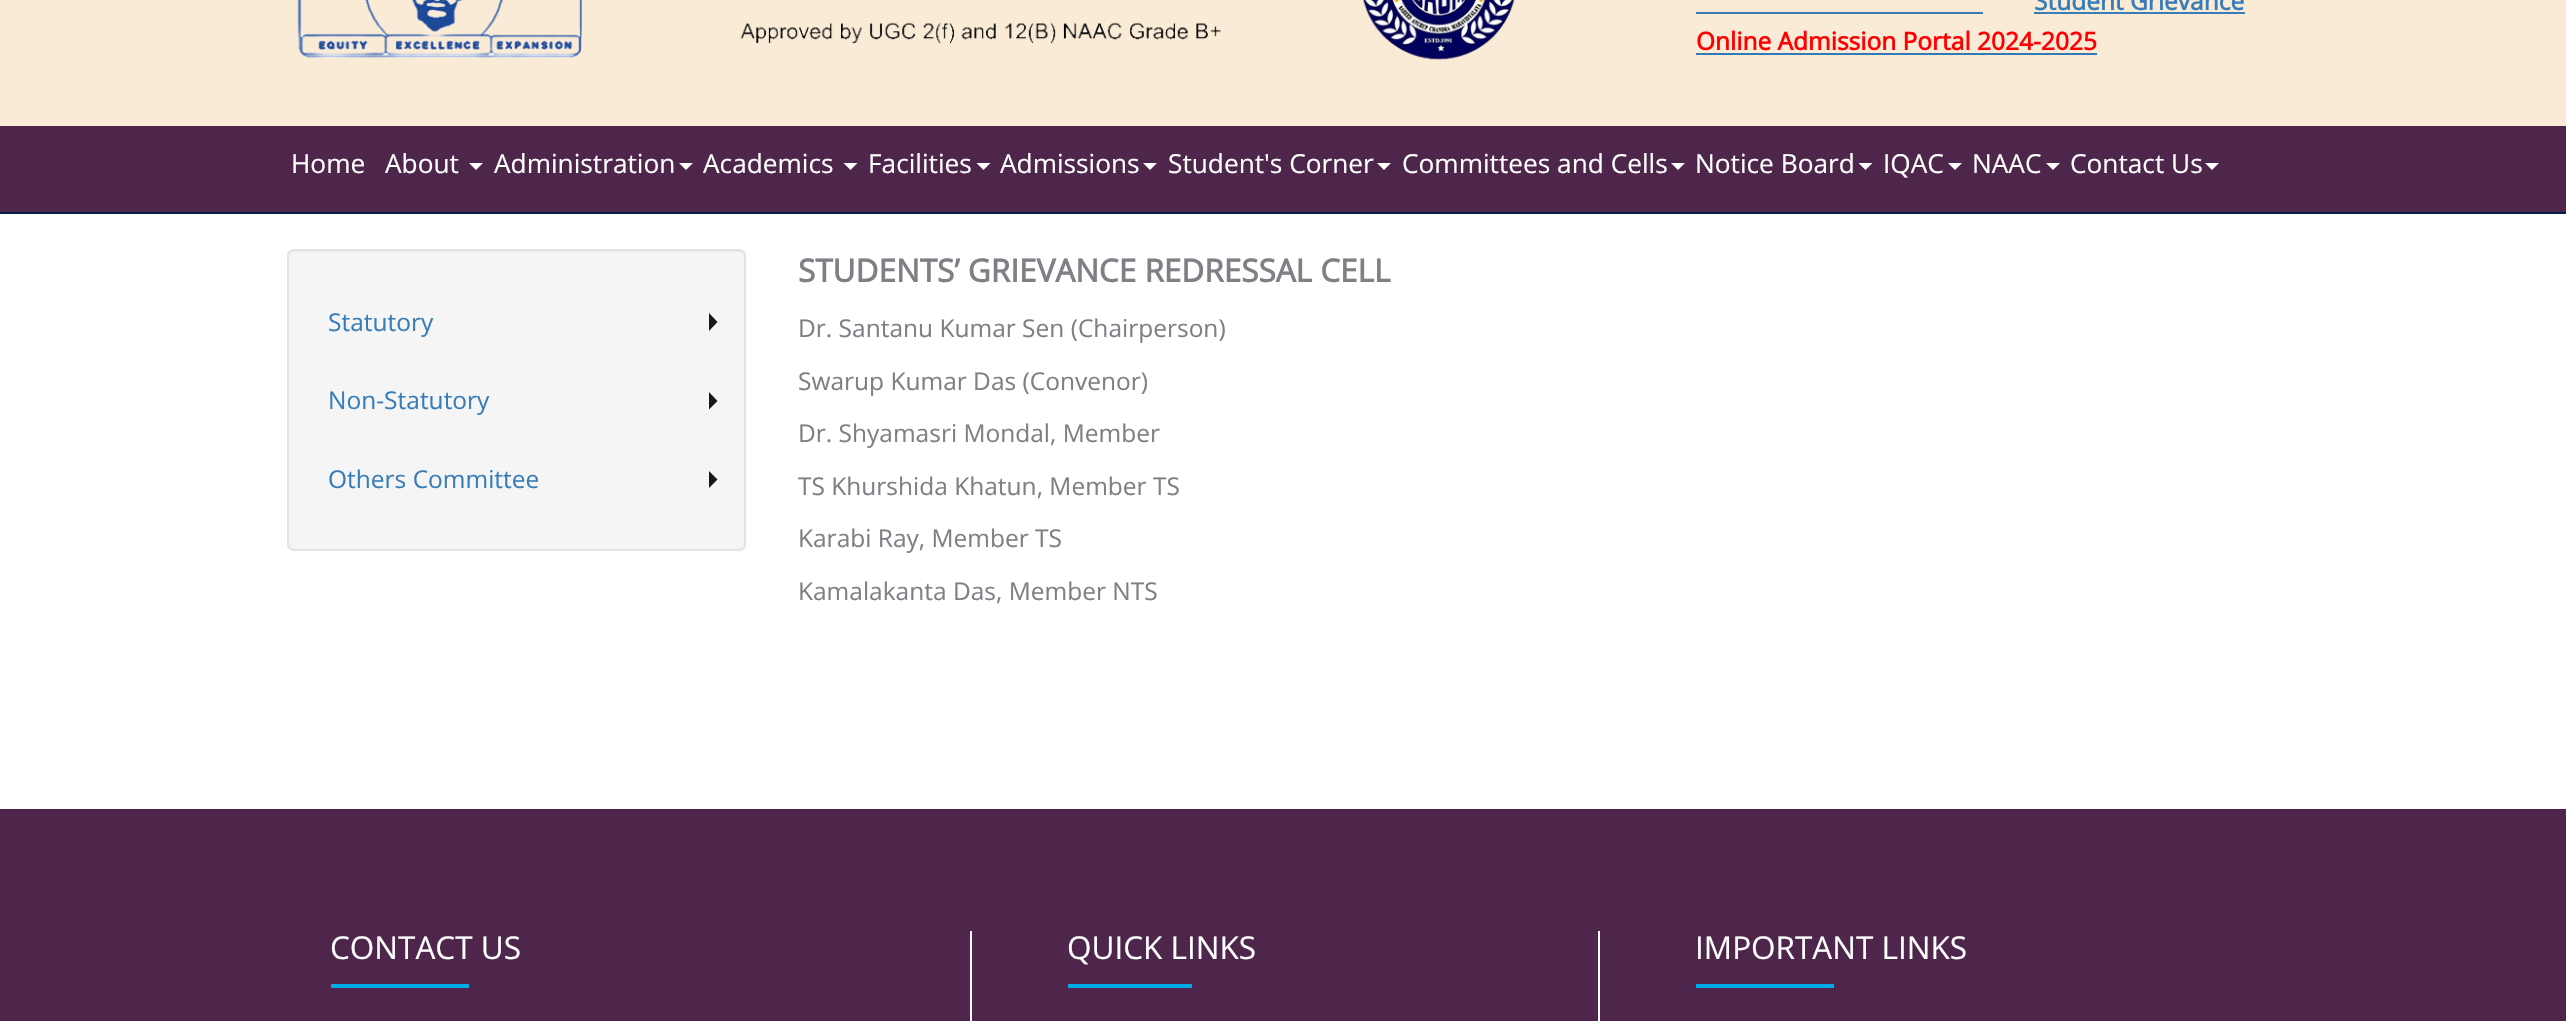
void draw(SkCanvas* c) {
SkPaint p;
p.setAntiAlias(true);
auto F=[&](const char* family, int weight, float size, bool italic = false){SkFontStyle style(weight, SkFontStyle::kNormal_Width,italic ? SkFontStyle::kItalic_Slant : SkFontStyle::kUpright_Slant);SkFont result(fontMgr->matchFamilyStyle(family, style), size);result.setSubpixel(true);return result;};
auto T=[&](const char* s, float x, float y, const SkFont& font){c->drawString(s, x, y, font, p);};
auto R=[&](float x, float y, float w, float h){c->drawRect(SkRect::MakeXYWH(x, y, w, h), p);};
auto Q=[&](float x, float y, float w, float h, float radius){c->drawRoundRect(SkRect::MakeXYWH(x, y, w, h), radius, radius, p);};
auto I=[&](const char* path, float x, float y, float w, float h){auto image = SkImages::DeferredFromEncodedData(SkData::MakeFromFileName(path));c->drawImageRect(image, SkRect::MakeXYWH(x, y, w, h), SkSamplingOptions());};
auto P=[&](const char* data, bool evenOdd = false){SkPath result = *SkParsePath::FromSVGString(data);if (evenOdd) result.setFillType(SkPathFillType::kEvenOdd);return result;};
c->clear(0xffffffff);
p.setColor(0xfffaebd7);
R(0,0,2566,126);
I("1.png",297,0,1254,78);
auto f1 = F("Open Sans",700,24.5);
p.setColor(0xff387db8);
T("Student Grievance",2034,10,f1);
R(2034,12,211,2);
R(1696,12,287,2);
p.setColor(0xffff0000);
T("Online Admission Portal 2024-2025",1696,50,f1);
p.setColor(0xff337ab7);
R(1696,53,401,2);
p.setColor(0xff4e254b);
R(0,126,2566,86);
p.setColor(0xff002147);
R(0,212,2566,2);
auto f2 = F("Open Sans",400,26.25);
p.setColor(0xffffffff);
T("Home",291,173,f2);
T("About",385,173,f2);
c->drawPath(P("M469 163h14l-7 7z"),p);
T("Administration",494,173,f2);
c->drawPath(P("M679 163h14l-7 7z"),p);
T("Academics",703,173,f2);
c->drawPath(P("M843.5 163h14l-7 7z"),p);
T("Facilities",868,173,f2);
c->drawPath(P("M976.5 163h14l-7 7z"),p);
T("Admissions",1000,173,f2);
c->drawPath(P("M1143 163h14l-7 7z"),p);
T("Student's Corner",1168,173,f2);
c->drawPath(P("M1377 163h14l-7 7z"),p);
T("Committees and Cells",1402,173,f2);
c->drawPath(P("M1671 163h14l-7 7z"),p);
T("Notice Board",1695,173,f2);
c->drawPath(P("M1858.5 163h14l-7 7z"),p);
T("IQAC",1883,173,f2);
c->drawPath(P("M1948 163h14l-7 7z"),p);
T("NAAC",1972,173,f2);
c->drawPath(P("M2046 163h14l-7 7z"),p);
T("Contact Us",2070,173,f2);
c->drawPath(P("M2205 163h14l-7 7z"),p);
p.setColor(0xfff5f5f5);
Q(287,249,459,302,7);
p.setColor(0xffe9e9e9);
c->drawPath(P("M294 252h444c3 0 6 2 6 5c0-3-1-7-5-7h-445c-4 0-5 4-5 7c0-3 2-5 5-5z"),p);
p.setStroke(true);
p.setStrokeWidth(2);
p.setColor(0xffe3e3e3);
c->drawRoundRect(SkRect::MakeXYWH(288,250,457,300),6,6,p);
auto f3 = F("Open Sans",400,24.5);
p.setStroke(false);
p.setColor(0xff387db8);
T("Statutory",328,331,f3);
p.setColor(0xff171717);
c->drawPath(P("M709 331v-18l8.5 9z"),p);
p.setColor(0xff387db8);
T("Non-Statutory",328,409,f3);
p.setColor(0xff171717);
c->drawPath(P("M709 409.5v-17.5l8.5 9z"),p);
p.setColor(0xff387db8);
T("Others Committee",328,488,f3);
p.setColor(0xff171717);
c->drawPath(P("M709 488v-17l8.5 8.5z"),p);
auto f4 = F("Open Sans",700,31.5);
p.setColor(0xff7e8085);
T("STUDENTS’ GRIEVANCE REDRESSAL CELL",798,282,f4);
T("Dr. Santanu Kumar Sen (Chairperson)",798,337,f3);
T("Swarup Kumar Das (Convenor)",798,390,f3);
T("Dr. Shyamasri Mondal, Member",798,442,f3);
T("TS Khurshida Khatun, Member TS",798,495,f3);
T("Karabi Ray, Member TS",798,547,f3);
T("Kamalakanta Das, Member NTS",798,600,f3);
p.setColor(0xff4e254b);
R(0,809,2566,212);
auto f5 = F("Open Sans",400,31.5);
p.setColor(0xffffffff);
T("CONTACT US",330,959,f5);
p.setColor(0xff00ace8);
R(331,984,138,4);
p.setColor(0xffffffff);
R(1598,931,2,90);
R(970,931,2,90);
T("QUICK LINKS",1067,959,f5);
p.setColor(0xff00ace8);
R(1068,984,124,4);
p.setColor(0xffffffff);
T("IMPORTANT LINKS",1695,959,f5);
p.setColor(0xff00ace8);
R(1696,984,138,4);
}
